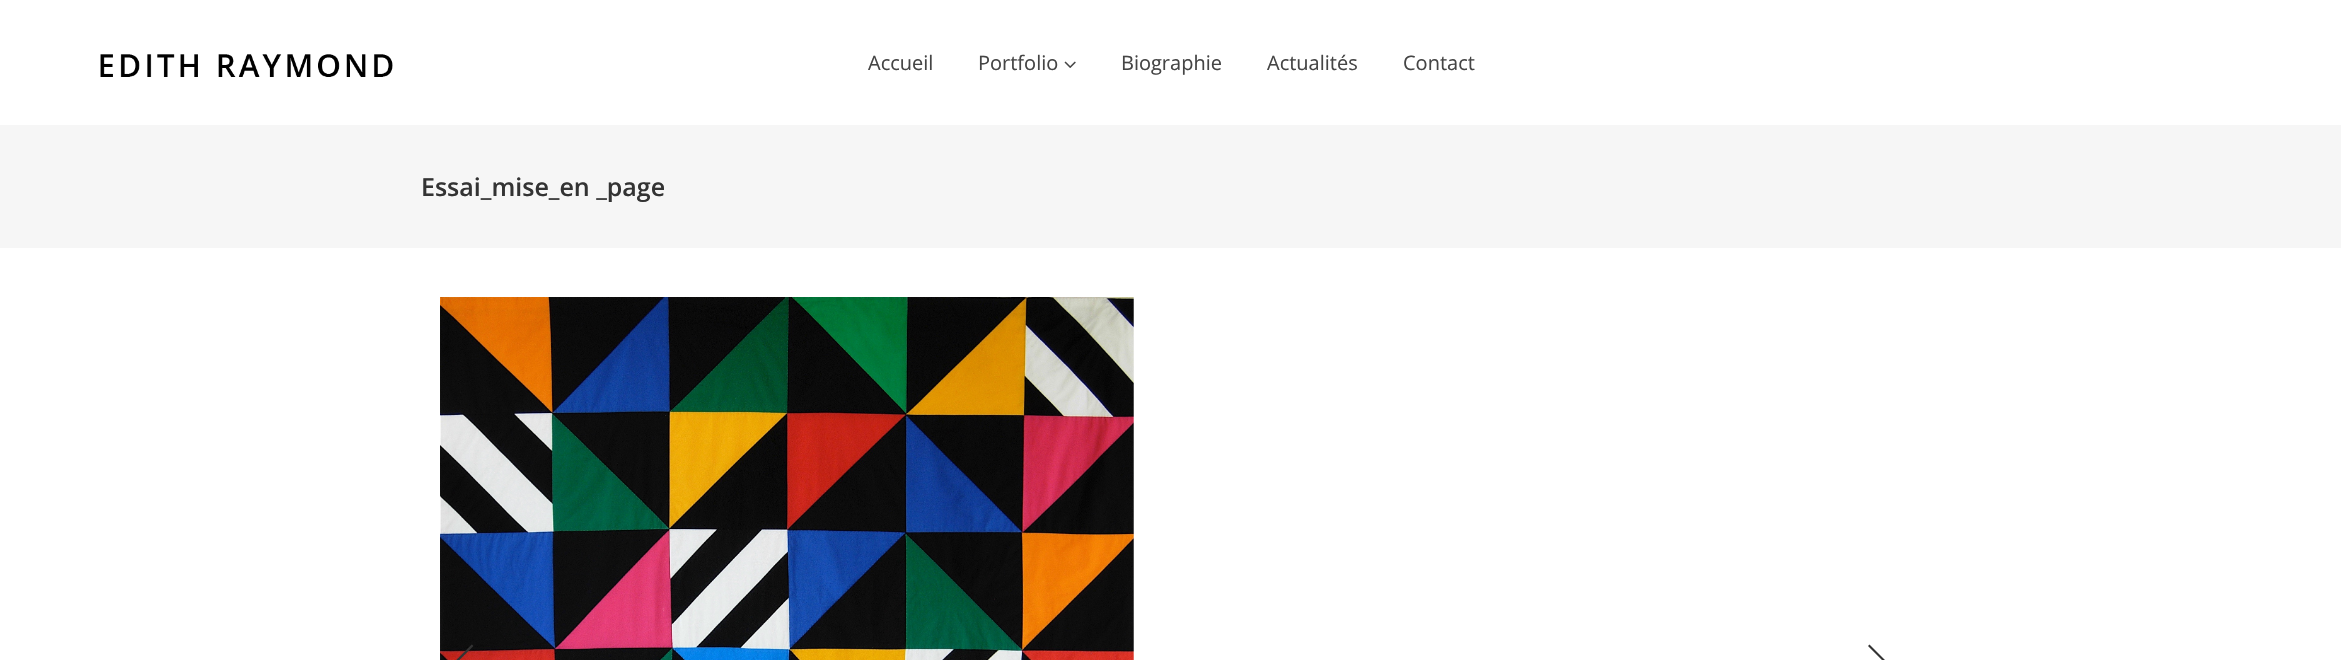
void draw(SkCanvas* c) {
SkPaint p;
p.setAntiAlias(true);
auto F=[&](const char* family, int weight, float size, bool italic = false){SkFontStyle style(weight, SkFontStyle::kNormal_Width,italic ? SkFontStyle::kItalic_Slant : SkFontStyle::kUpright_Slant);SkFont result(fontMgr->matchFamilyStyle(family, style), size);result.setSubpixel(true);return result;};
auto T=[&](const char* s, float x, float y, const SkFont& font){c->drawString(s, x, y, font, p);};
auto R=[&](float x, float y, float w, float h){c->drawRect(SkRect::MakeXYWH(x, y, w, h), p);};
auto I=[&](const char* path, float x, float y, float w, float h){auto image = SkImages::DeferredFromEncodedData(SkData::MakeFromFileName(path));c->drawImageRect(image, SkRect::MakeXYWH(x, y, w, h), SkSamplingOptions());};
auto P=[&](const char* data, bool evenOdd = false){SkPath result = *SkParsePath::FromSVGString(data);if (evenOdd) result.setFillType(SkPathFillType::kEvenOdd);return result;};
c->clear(0xffffffff);
I("1.png",100,54,293,23);
auto f1 = F("Open Sans",400,20);
p.setColor(0xff454545);
T("Accueil",868,70,f1);
T("Portfolio",978,70,f1);
I("2.png",1064,61,12,7);
T("Biographie",1121,70,f1);
T("Actualités",1267,70,f1);
T("Contact",1403,70,f1);
p.setColor(0xfff6f6f6);
R(0,125,2341,123);
auto f2 = F("Open Sans",600,25);
p.setColor(0xff333333);
T("Essai_mise_en _page",421,196,f2);
I("3.png",440,297,694,363);
I("4.png",456,644,18,16);
c->drawPath(P("M1887.5 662.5v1.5l-18 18l-2-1.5l17.5-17.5l-17-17l1.5-1.5z"),p);
}
